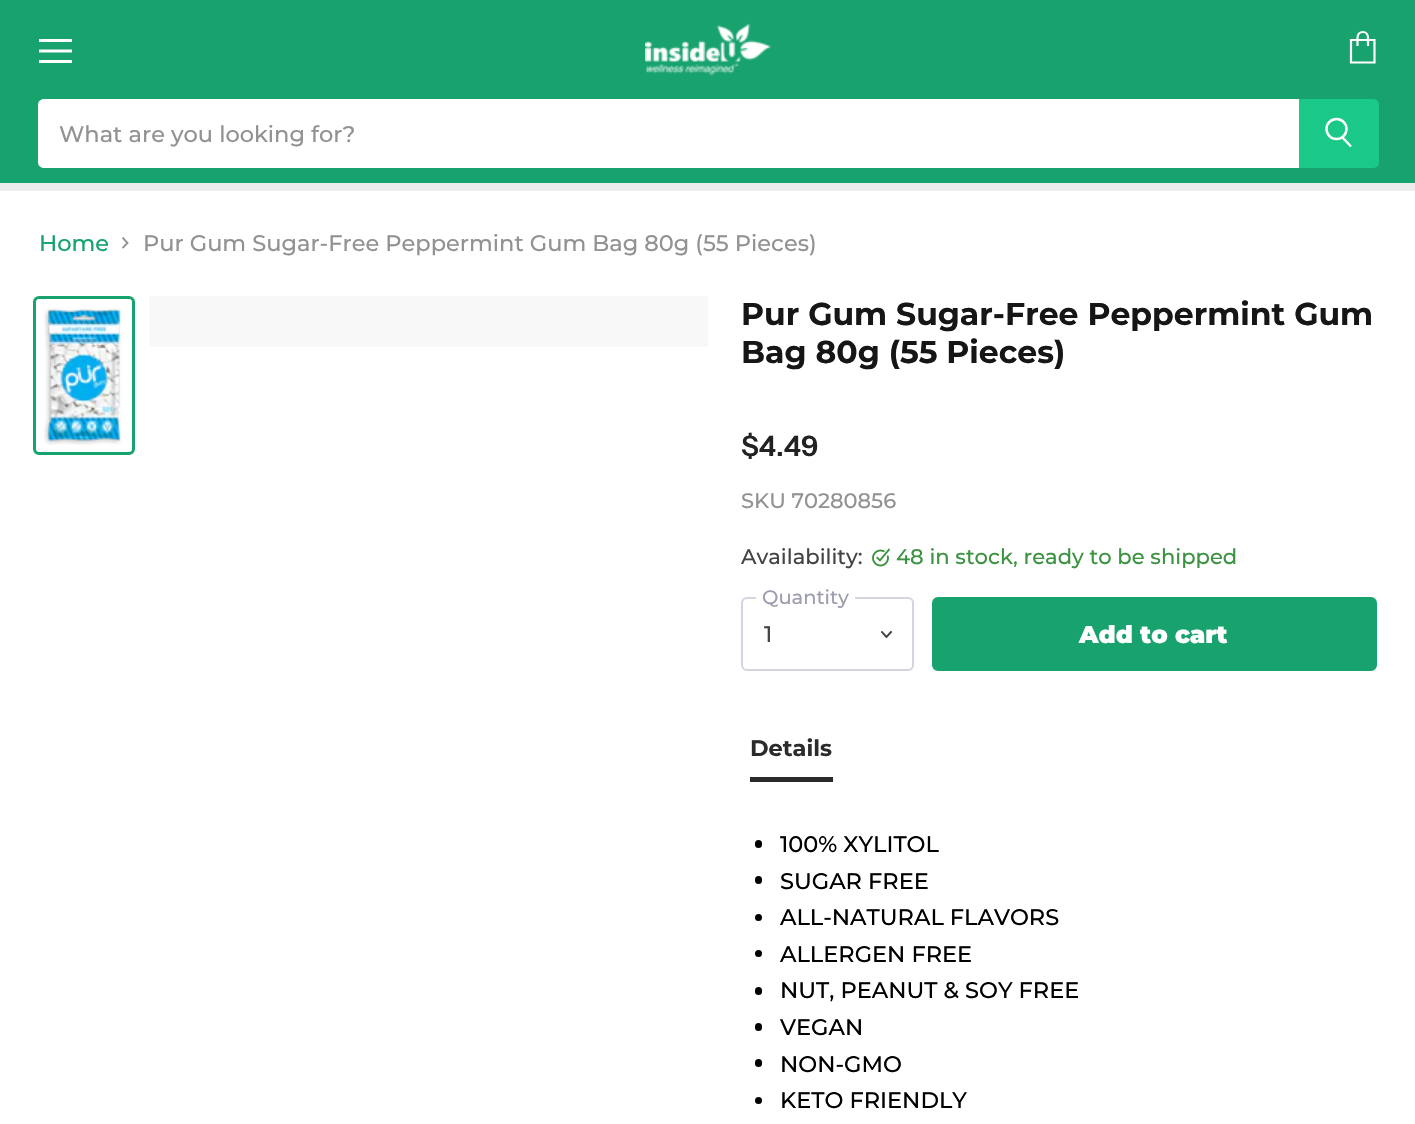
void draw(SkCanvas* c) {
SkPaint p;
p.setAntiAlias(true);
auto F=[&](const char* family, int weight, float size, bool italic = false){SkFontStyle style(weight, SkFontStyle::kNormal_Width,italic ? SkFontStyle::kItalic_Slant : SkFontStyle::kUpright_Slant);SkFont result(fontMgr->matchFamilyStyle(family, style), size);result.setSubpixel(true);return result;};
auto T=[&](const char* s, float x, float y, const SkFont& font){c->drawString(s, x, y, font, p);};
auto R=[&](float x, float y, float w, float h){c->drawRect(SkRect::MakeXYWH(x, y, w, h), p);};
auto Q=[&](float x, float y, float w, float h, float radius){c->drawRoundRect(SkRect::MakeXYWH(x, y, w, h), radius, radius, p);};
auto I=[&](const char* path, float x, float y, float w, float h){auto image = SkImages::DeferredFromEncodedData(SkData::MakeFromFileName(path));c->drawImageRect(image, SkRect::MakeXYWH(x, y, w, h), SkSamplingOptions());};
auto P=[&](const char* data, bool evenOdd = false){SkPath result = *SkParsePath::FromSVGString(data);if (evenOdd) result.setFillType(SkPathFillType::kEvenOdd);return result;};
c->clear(0xffffffff);
p.setColor(0xff17a26e);
R(0,0,1415,183);
p.setColor(0xffededed);
R(0,183,1415,8);
p.setColor(0xffffffff);
R(39,39,33,3);
p.setStroke(true);
p.setStrokeWidth(3);
p.setStrokeCap(SkPaint::kSquare_Cap);
p.setStrokeJoin(SkPaint::kRound_Join);
c->drawPath(P("M70.5 51h-30"),p);
p.setStroke(false);
R(39,60,33,3);
p.setStroke(true);
p.setStrokeWidth(2.2);
p.setStrokeCap(SkPaint::kButt_Cap);
p.setStrokeJoin(SkPaint::kMiter_Join);
c->drawPath(P("M1351 40h23.5v22.5h-23.5zm17 6v-8c0-4-2.5-6-5-6c-3 0-5.5 2-5.5 6v8"),p);
I("1.png",645,23,126,53);
p.setStroke(false);
c->drawPath(P("M44 99h1255v69h-1255c-3.5 0-6-2.5-6-6v-57c0-3.5 2.5-6 6-6z"),p);
auto f1 = F("Montserrat",500,22.5);
p.setColor(0xff929292);
T("What are you looking for?",59,142,f1);
p.setColor(0xff1ac988);
c->drawPath(P("M1299 99h74c3.5 0 6 2.5 6 6v57c0 3.5-2.5 6-6 6h-74z"),p);
p.setStroke(true);
p.setStrokeWidth(2.5);
p.setColor(0xffffffff);
c->drawPath(P("M1351 146.5l-8.5-9"),p);
c->drawCircle(1336.5,129,10,p);
p.setStroke(false);
p.setColor(0xff17a26e);
T("Home",39,251,f1);
c->save();
c->clipPath(P("M122 249v-12h8v12z"),true);
p.setStroke(true);
p.setStrokeWidth(1.9);
p.setColor(0xff929292);
c->drawPath(P("M122.5 248l5-5l-5-5.5"),p);
c->restore();
p.setStroke(false);
T("Pur Gum Sugar-Free Peppermint Gum Bag 80g (55 Pieces)",143,251,f1);
p.setStroke(true);
p.setStrokeWidth(3);
p.setColor(0xff17a26e);
c->drawRoundRect(SkRect::MakeXYWH(34.5,297.5,99,156),4.5,4.5,p);
I("2.png",44,308,79,137);
p.setStroke(false);
p.setColor(0xfff8f8f8);
R(149,296,559,51);
auto f2 = F("Montserrat",700,31.5);
p.setColor(0xff161616);
T("Pur Gum Sugar-Free Peppermint Gum",741,325,f2);
T("Bag 80g (55 Pieces)",741,363,f2);
auto f3 = F("Instrument Sans",600,28);
p.setColor(0xff222222);
T("$4.49",741,456,f3);
auto f4 = F("Montserrat",500,21);
p.setColor(0xff929292);
T("SKU 70280856",741,508,f4);
auto f5 = F("Montserrat",500,21.1);
p.setColor(0xff444444);
T("Availability:",741,564,f5);
I("3.png",872,548,19,19);
p.setColor(0xff3c9342);
T("48 in stock, ready to be shipped",896,564,f5);
p.setStroke(true);
p.setStrokeWidth(2);
p.setColor(0xffd3d4de);
c->drawRoundRect(SkRect::MakeXYWH(742,598,171,72),5,5,p);
p.setStroke(false);
p.setColor(0xffffffff);
R(756,597,99,2);
auto f6 = F("Montserrat",500,19.5);
p.setColor(0xff9d9eaf);
T("Quantity",762,604,f6);
p.setColor(0xff444444);
T("1",764,642,f1);
p.setStroke(true);
p.setStrokeWidth(1.9);
p.setStrokeCap(SkPaint::kSquare_Cap);
c->drawPath(P("M886.5 637l4.5-5m-4.5 5l-4.5-5"),p);
p.setStroke(false);
p.setColor(0xff17a26e);
c->drawRoundRect(SkRect::MakeXYWH(933,598,443,72),5,5,p);
p.setStroke(true);
p.setStrokeWidth(2);
p.setStrokeCap(SkPaint::kButt_Cap);
c->drawRoundRect(SkRect::MakeXYWH(933,598,443,72),5,5,p);
auto f7 = F("Montserrat",900,24.25);
p.setStroke(false);
p.setColor(0xffffffff);
T("Add to cart",1079,643,f7);
p.setColor(0xff2b2b2b);
R(750,777,83,5);
auto f8 = F("Montserrat",700,22.5);
T("Details",750,756,f8);
p.setColor(0xff000000);
Q(755,840,7,8,3.5);
T("100% XYLITOL",780,852,f1);
Q(755,876,7,8,3.5);
T("SUGAR FREE",780,889,f1);
c->drawCircle(758.5,917.5,3.5,p);
T("ALL-NATURAL FLAVORS",780,925,f1);
c->drawCircle(758.5,953.5,3.5,p);
T("ALLERGEN FREE",780,962,f1);
Q(755,987,7,8,3.5);
T("NUT, PEANUT & SOY FREE",780,998,f1);
Q(755,1023,7,8,3.5);
T("VEGAN",780,1035,f1);
Q(755,1059,7,8,3.5);
T("NON-GMO",780,1072,f1);
c->drawCircle(758.5,1100.5,3.5,p);
T("KETO FRIENDLY",780,1108,f1);
}
